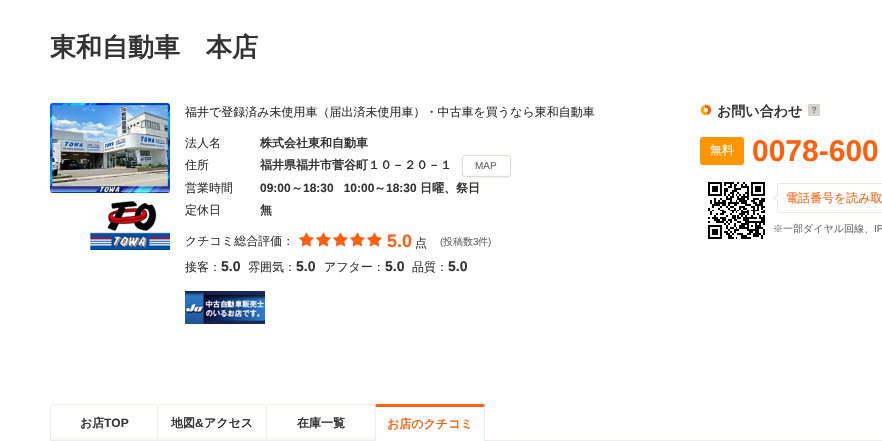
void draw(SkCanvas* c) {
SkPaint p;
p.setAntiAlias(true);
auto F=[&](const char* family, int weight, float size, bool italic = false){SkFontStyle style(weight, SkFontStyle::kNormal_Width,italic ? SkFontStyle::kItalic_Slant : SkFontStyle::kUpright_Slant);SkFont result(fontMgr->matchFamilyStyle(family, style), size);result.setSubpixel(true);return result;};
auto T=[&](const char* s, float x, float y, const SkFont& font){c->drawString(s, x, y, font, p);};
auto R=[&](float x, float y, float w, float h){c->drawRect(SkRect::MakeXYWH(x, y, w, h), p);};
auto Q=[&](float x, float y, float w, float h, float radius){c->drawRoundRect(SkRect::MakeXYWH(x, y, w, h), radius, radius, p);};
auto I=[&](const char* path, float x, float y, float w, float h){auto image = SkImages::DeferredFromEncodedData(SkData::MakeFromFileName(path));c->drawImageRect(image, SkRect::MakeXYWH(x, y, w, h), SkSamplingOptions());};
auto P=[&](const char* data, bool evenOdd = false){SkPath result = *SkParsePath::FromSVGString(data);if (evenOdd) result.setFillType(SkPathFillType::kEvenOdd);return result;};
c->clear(0xffffffff);
auto f1 = F("WenQuanYi Zen Hei",700,26);
p.setColor(0xff333333);
T("東和自動車　本店",50,56,f1);
I("1.png",50,103,120,90);
I("2.png",90,198,80,52);
auto f2 = F("WenQuanYi Zen Hei",500,12);
T("福井で登録済み未使用車（届出済未使用車）・中古車を買うなら東和自動車",185,116,f2);
T("法人名",185,147,f2);
auto f3 = F("WenQuanYi Zen Hei",700,12);
T("株式会社東和自動車",260,147,f3);
T("住所",185,169,f2);
T("福井県福井市菅谷町１０－２０－１",260,169,f3);
p.setColor(0x0f000000);
p.setMaskFilter(SkMaskFilter::MakeBlur(kNormal_SkBlurStyle, 1));
c->drawRoundRect(SkRect::MakeXYWH(462,156,49,22),3,3,p);
p.setMaskFilter(nullptr);
c->save();
c->clipPath(P("M465 155h43c1.5 0 3 1.5 3 3v16c0 1.5-1.5 3-3 3h-43c-1.5 0-3-1.5-3-3v-16c0-1.5 1.5-3 3-3z"),true);
{
const SkColor colors[] = {0xffffffff,0xfff6f6f6};
const float stops[] = {.85,1};
const SkPoint ends[] = {{487,156}, {487,176}};
p.setShader(SkGradientShader::MakeLinear(ends, colors, stops, 2, SkTileMode::kClamp));
p.setAlpha(255);
}
R(462,156,49,20);
c->restore();
p.setStroke(true);
p.setStrokeWidth(1);
p.setShader(nullptr);
p.setColor(0xffdedcd7);
c->drawRoundRect(SkRect::MakeXYWH(462.5,155.5,48,21),2.5,2.5,p);
auto f4 = F("Liberation Sans",400,10);
p.setStroke(false);
p.setColor(0xff666666);
T("MAP",475,169,f4);
p.setColor(0xff333333);
T("営業時間",185,192,f2);
auto f5 = F("Liberation Sans",700,12);
T("09:00",260,192,f5);
T("～",291,192,f3);
T("18:30   10:00",303,192,f5);
T("～",374,192,f3);
T("18:30",386,192,f5);
T("日曜、祭日",420,192,f3);
T("定休日",185,214,f2);
T("無",260,214,f3);
T("クチコミ総合評価：",185,245,f2);
I("3.png",299,232,15,15);
I("3.png",316,232,15,15);
I("3.png",333,232,15,15);
I("3.png",350,232,15,15);
I("3.png",367,232,15,15);
auto f6 = F("Liberation Sans",700,18);
p.setColor(0xffff6010);
T("5.0",387,247,f6);
p.setColor(0xff333333);
T("点",415,247,f2);
p.setColor(0xff666666);
T("(",440,245,f4);
auto f7 = F("WenQuanYi Zen Hei",500,10);
T("投稿数",443,245,f7);
T("3",473,245,f4);
T("件",478,245,f7);
T(")",488,245,f4);
p.setColor(0xff333333);
T("接客：",185,271,f2);
auto f8 = F("Liberation Sans",700,14);
T("5.0",221,271,f8);
T("雰囲気：",248,271,f2);
T("5.0",296,271,f8);
T("アフター：",324,271,f2);
T("5.0",385,271,f8);
T("品質：",412,271,f2);
T("5.0",448,271,f8);
I("4.png",185,291,80,33);
I("5.png",700,104,12,12);
auto f9 = F("WenQuanYi Zen Hei",700,14);
T("お問い合わせ",717,116,f9);
I("6.png",808,104,12,12);
p.setColor(0xffff9500);
Q(700,137,44,28,3);
p.setColor(0xffffffff);
T("無料",710,154,f2);
auto f10 = F("Liberation Sans",700,30);
p.setColor(0xffff6010);
T("0078-600",752,161,f10);
I("7.png",708,182,57,57);
p.setStroke(true);
p.setColor(0xffebe9e4);
c->drawRoundRect(SkRect::MakeXYWH(777.5,183.5,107,29),1.5,1.5,p);
p.setStroke(false);
c->drawPath(P("M778 194v8l-5-4z"),p);
p.setColor(0xffff6010);
T("電話番号を読み取",786,202,f2);
p.setColor(0xffffffff);
c->drawPath(P("M780 194v8l-5-4z"),p);
p.setColor(0xff666666);
T("※一部ダイヤル回線、",773,232,f7);
T("IP",874,232,f4);
p.setColor(0xfff0ede9);
R(485,440,397,1);
c->save();
c->clipPath(P("M53 404h102c1.5 0 3 1.5 3 3v34h-108v-34c0-1.5 1.5-3 3-3z"),true);
{
const SkColor colors[] = {0xffffffff,0xfff6f6f6};
const float stops[] = {.85,1};
const SkPoint ends[] = {{104,405}, {104,440}};
p.setShader(SkGradientShader::MakeLinear(ends, colors, stops, 2, SkTileMode::kClamp));
p.setAlpha(255);
}
R(50,405,108,35);
c->restore();
p.setStroke(true);
p.setShader(nullptr);
p.setColor(0xfff0ede9);
c->drawPath(P("M53 404.5h102c1.5 0 2.5 1 2.5 2.5v33.5h-107v-33.5c0-1.5 1-2.5 2.5-2.5z"),p);
p.setStroke(false);
p.setColor(0xff333333);
T("お店",80,427,f3);
T("TOP",104,427,f5);
c->save();
c->clipPath(P("M160 404h104c1.5 0 3 1.5 3 3v34h-110v-34c0-1.5 1.5-3 3-3z"),true);
{
const SkColor colors[] = {0xffffffff,0xfff6f6f6};
const float stops[] = {.85,1};
const SkPoint ends[] = {{212,405}, {212,440}};
p.setShader(SkGradientShader::MakeLinear(ends, colors, stops, 2, SkTileMode::kClamp));
p.setAlpha(255);
}
R(157,405,110,35);
c->restore();
p.setStroke(true);
p.setShader(nullptr);
p.setColor(0xfff0ede9);
c->drawPath(P("M160 404.5h104c1.5 0 2.5 1 2.5 2.5v33.5h-109v-33.5c0-1.5 1-2.5 2.5-2.5z"),p);
p.setStroke(false);
p.setColor(0xff333333);
T("地図",171,427,f3);
T("&",195,427,f5);
T("アクセス",204,427,f3);
c->save();
c->clipPath(P("M269 404h104c1.5 0 3 1.5 3 3v34h-110v-34c0-1.5 1.5-3 3-3z"),true);
{
const SkColor colors[] = {0xffffffff,0xfff6f6f6};
const float stops[] = {.85,1};
const SkPoint ends[] = {{321,405}, {321,440}};
p.setShader(SkGradientShader::MakeLinear(ends, colors, stops, 2, SkTileMode::kClamp));
p.setAlpha(255);
}
R(266,405,110,35);
c->restore();
p.setStroke(true);
p.setShader(nullptr);
p.setColor(0xfff0ede9);
c->drawPath(P("M269 404.5h104c1.5 0 2.5 1 2.5 2.5v33.5h-109v-33.5c0-1.5 1-2.5 2.5-2.5z"),p);
p.setStroke(false);
p.setColor(0xff333333);
T("在庫一覧",297,427,f3);
p.setColor(0xffffffff);
c->drawPath(P("M378 404h104c1.5 0 3 1.5 3 3v34h-110v-34c0-1.5 1.5-3 3-3z"),p);
p.setColor(0xffff6010);
c->drawPath(P("M378 404c-1 0-2 0-3 1l1 2h108l1-2c-1-1-2-1-3-1z"),p);
p.setColor(0xfff0ede9);
c->drawPath(P("M484 441h1v-34l-.5-2l-.5 2z"),p);
c->drawPath(P("M375 441h1v-34l-.5-2l-.5 2z"),p);
p.setColor(0xffff6010);
T("お店のクチコミ",387,428,f3);
}
